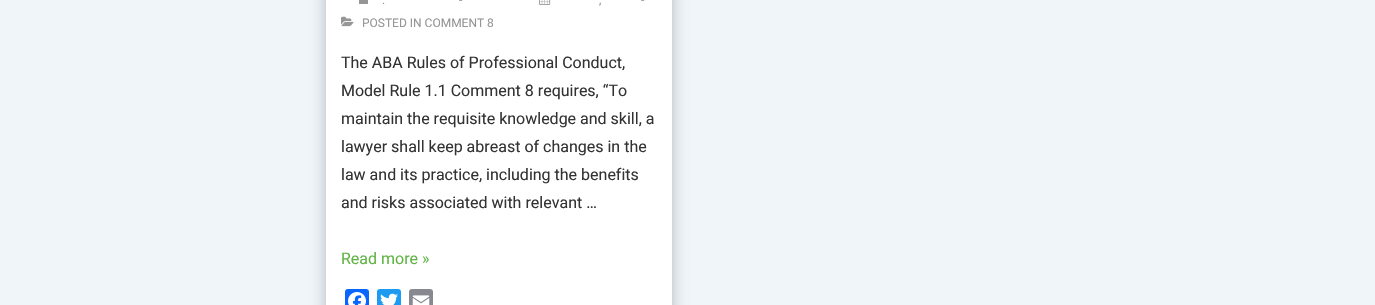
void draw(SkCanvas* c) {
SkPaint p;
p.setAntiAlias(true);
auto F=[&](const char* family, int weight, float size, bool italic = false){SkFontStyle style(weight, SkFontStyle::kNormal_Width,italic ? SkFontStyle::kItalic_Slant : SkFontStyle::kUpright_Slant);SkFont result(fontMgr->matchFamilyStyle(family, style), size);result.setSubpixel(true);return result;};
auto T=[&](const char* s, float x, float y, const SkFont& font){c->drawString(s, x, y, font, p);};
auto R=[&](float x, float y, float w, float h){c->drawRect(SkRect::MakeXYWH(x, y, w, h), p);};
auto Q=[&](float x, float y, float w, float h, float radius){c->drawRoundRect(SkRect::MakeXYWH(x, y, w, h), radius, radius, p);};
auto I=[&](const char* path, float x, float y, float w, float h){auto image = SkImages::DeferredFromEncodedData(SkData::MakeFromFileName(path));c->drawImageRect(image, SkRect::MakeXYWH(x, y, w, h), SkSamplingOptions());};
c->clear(0xfff0f5fa);
p.setColor(0x40000000);
p.setMaskFilter(SkMaskFilter::MakeBlur(kNormal_SkBlurStyle, 7.5));
c->drawRoundRect(SkRect::MakeXYWH(326,-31,346,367),8,8,p);
p.setMaskFilter(nullptr);
p.setColor(0xffffffff);
R(326,0,346,305);
auto f1 = F("Roboto",400,12);
p.setColor(0xff969696);
T("-",459,4,f1);
I("1.png",539,0,12,5);
T("-",641,4,f1);
T(".",382,4,f1);
R(359,0,9,4);
T(",",599,4,f1);
I("2.png",341,16,13,11);
T("POSTED IN COMMENT 8",362,27,f1);
auto f2 = F("Roboto",400,16);
p.setColor(0xff333333);
T("The ABA Rules of Professional Conduct,",341,68,f2);
T("Model Rule 1.1 Comment 8 requires, “To",341,96,f2);
T("maintain the requisite knowledge and skill, a",341,124,f2);
T("lawyer shall keep abreast of changes in the",341,152,f2);
T("law and its practice, including the benefits",341,180,f2);
T("and risks associated with relevant …",341,208,f2);
p.setColor(0xff5fb445);
T("Read more »",341,264,f2);
p.setColor(0xff0866ff);
Q(345,289,24,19,3);
I("3.png",348,292,18,13);
p.setColor(0xff1d9bf0);
Q(377,289,24,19,3);
I("4.png",380,293,18,12);
p.setColor(0xff888990);
Q(409,289,24,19,3);
I("5.png",412,295,18,10);
}
